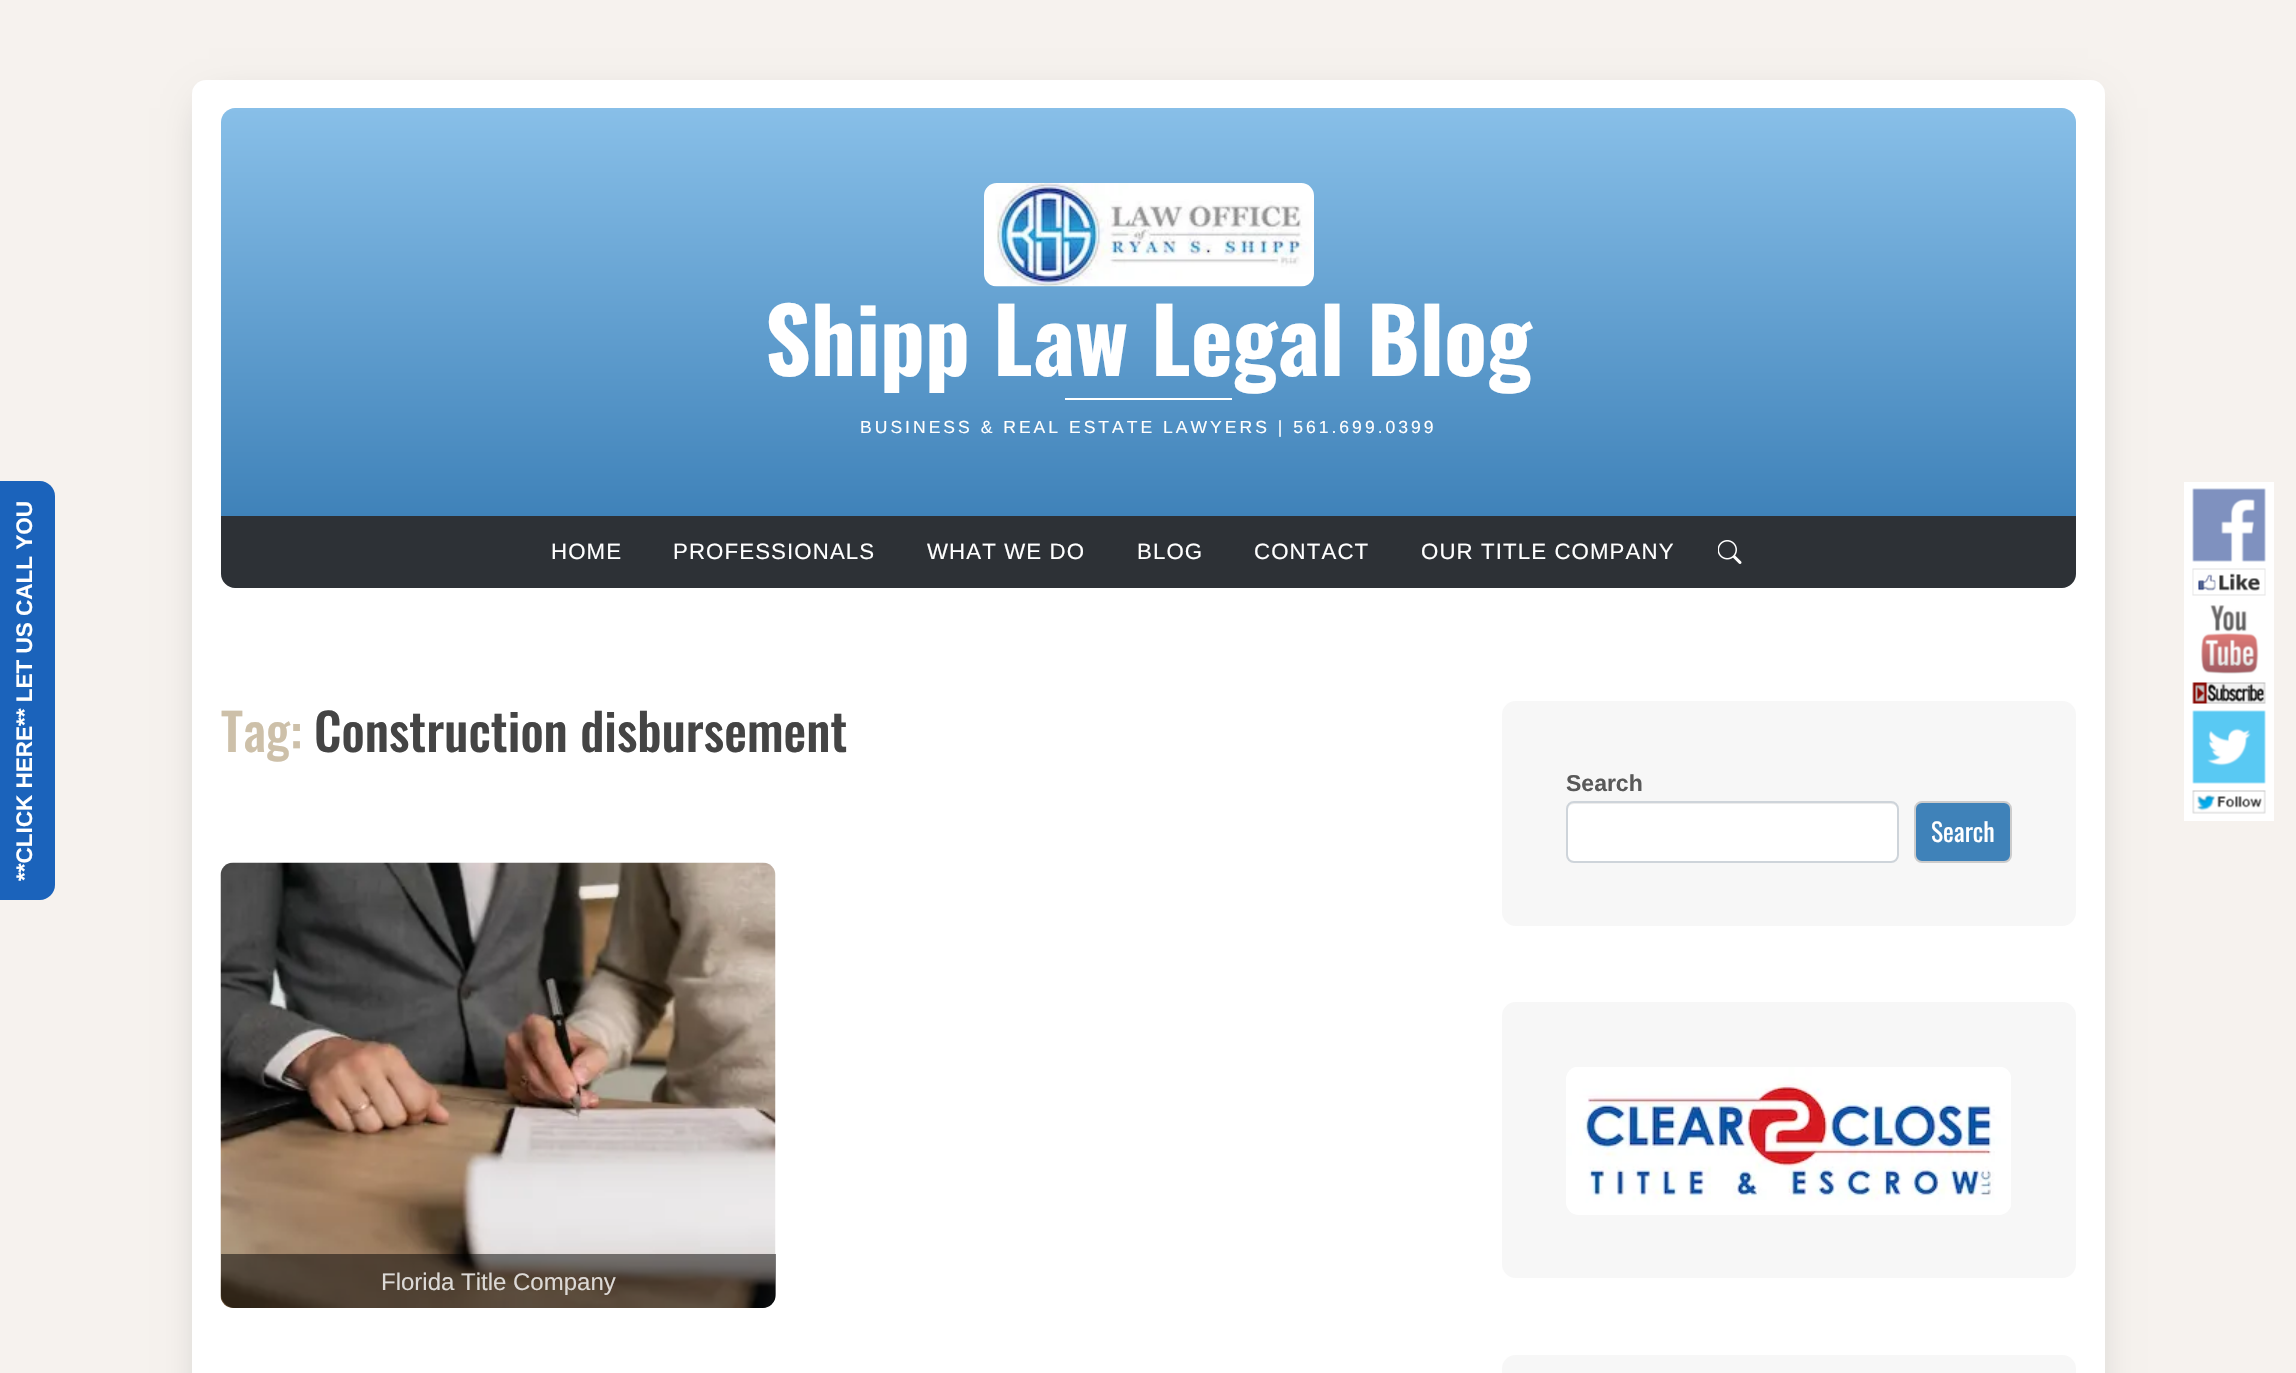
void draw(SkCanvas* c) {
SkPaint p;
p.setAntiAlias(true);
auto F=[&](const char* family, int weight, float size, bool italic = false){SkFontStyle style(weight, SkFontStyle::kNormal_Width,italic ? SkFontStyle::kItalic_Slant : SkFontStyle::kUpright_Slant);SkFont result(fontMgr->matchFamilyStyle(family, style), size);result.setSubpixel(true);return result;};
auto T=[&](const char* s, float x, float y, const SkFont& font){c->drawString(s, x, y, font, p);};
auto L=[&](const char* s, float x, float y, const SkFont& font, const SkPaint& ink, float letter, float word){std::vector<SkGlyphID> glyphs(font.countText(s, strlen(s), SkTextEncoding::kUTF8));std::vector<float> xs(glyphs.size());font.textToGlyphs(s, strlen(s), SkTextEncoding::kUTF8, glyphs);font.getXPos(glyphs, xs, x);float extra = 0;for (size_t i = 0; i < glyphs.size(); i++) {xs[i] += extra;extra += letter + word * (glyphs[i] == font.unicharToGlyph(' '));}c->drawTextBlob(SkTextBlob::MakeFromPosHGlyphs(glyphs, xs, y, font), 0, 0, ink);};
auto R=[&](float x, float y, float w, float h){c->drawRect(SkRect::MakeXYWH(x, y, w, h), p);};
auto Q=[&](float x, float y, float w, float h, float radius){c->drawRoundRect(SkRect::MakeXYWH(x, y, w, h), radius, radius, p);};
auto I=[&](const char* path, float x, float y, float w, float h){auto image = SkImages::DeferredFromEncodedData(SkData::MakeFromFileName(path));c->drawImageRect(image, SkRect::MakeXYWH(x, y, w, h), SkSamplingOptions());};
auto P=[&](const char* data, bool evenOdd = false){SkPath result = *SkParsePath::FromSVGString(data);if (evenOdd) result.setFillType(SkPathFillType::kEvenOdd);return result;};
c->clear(0xfff6f2ee);
p.setColor(0xff1b63bb);
c->drawPath(P("M-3 900v-419h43c8 0 15 7 15 15v389c0 8-7 15-15 15z"),p);
auto f1 = F("Liberation Sans",700,22.5);
p.setColor(0xffffffff);
c->save();
c->rotate(-90,32,881);
T("**CLICK HERE** LET US CALL YOU",32,881,f1);
c->restore();
p.setColor(0x45000000);
p.setMaskFilter(SkMaskFilter::MakeBlur(kNormal_SkBlurStyle, 20));
c->drawRect(SkRect::MakeXYWH(209,108,1879,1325),p);
p.setMaskFilter(nullptr);
p.setColor(0xffffffff);
Q(192,80,1913,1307,14);
{
const SkColor colors[] = {0xff88bfe8,0xff3f82b9};
const float stops[] = {0,1};
const SkPoint ends[] = {{1148,108}, {1148,516}};
p.setShader(SkGradientShader::MakeLinear(ends, colors, stops, 2, SkTileMode::kClamp));
p.setAlpha(255);
}
c->drawPath(P("M235 108h1827c7.5 0 14 6.5 14 14v394h-1855v-394c0-7.5 6.5-14 14-14z"),p);
I("1.png",984,183,330,104);
auto f2 = F("Oswald",700,89.25);
p.setShader(nullptr);
p.setColor(0xffffffff);
T("Shipp Law Legal Blog",765,376,f2);
R(1065,398,167,2);
auto f3 = F("Liberation Sans",400,17.55);
L("BUSINESS & REAL ESTATE LAWYERS | 561.699.0399",860,433,f3,p,3,0);
p.setColor(0xff2d3136);
c->drawPath(P("M221 516h1855v58c0 7.5-6.5 14-14 14h-1827c-7.5 0-14-6.5-14-14z"),p);
auto f4 = F("Liberation Sans",400,22.25);
p.setColor(0xffffffff);
L("HOME",551,559,f4,p,1.1,0);
L("PROFESSIONALS",673,559,f4,p,1.1,0);
L("WHAT WE DO",927,559,f4,p,1.1,0);
L("BLOG",1137,559,f4,p,1.1,0);
L("CONTACT",1254,559,f4,p,1.1,0);
L("OUR TITLE COMPANY",1421,559,f4,p,1.1,0);
I("2.png",1718,540,24,24);
auto f5 = F("Oswald",500,51);
p.setColor(0xffcdc0a9);
T("Tag:",221,752,f5);
p.setColor(0xff444444);
T("Construction disbursement",314,752,f5);
I("3.png",220,862,556,446);
p.setColor(0x80000000);
c->drawPath(P("M221 1254h555v40c0 7.5-6.5 14-14 14h-527c-7.5 0-14-6.5-14-14z"),p);
auto f6 = F("Liberation Sans",400,24);
p.setColor(0xffdcd9d6);
T("Florida Title Company",381,1290,f6);
p.setColor(0xfff7f7f7);
Q(1502,701,574,225,14);
auto f7 = F("Liberation Sans",700,23);
p.setColor(0xff595959);
T("Search",1566,791,f7);
p.setColor(0xffffffff);
Q(1568,803,330,58,6);
p.setColor(0xffececec);
c->drawPath(P("M1574 804h317c4 0 7 3 7 6v-1c0-3-3-6-6-6h-318c-3 0-6 3-6 6v1c0-3 2-6 6-6z"),p);
p.setStroke(true);
p.setStrokeWidth(2);
p.setColor(0xffced4da);
c->drawRoundRect(SkRect::MakeXYWH(1567,802,331,60),7,7,p);
p.setStroke(false);
p.setColor(0xff3f82b9);
c->drawRoundRect(SkRect::MakeXYWH(1915,802,96,60),7,7,p);
p.setStroke(true);
p.setColor(0xffcccccc);
c->drawRoundRect(SkRect::MakeXYWH(1915,802,96,60),7,7,p);
auto f8 = F("Oswald",400,25.5);
p.setStroke(false);
p.setColor(0xffffffff);
T("Search",1931,842,f8);
p.setColor(0xfff7f7f7);
Q(1502,1002,574,276,14);
I("4.png",1566,1067,445,148);
Q(1502,1355,574,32,14);
p.setColor(0xffffffff);
R(2184,482,90,339);
I("5.png",2192,488,74,74);
I("6.png",2192,568,74,28);
I("7.png",2201,605,58,69);
I("8.png",2192,682,74,22);
I("9.png",2192,710,74,74);
I("10.png",2192,790,74,24);
}
